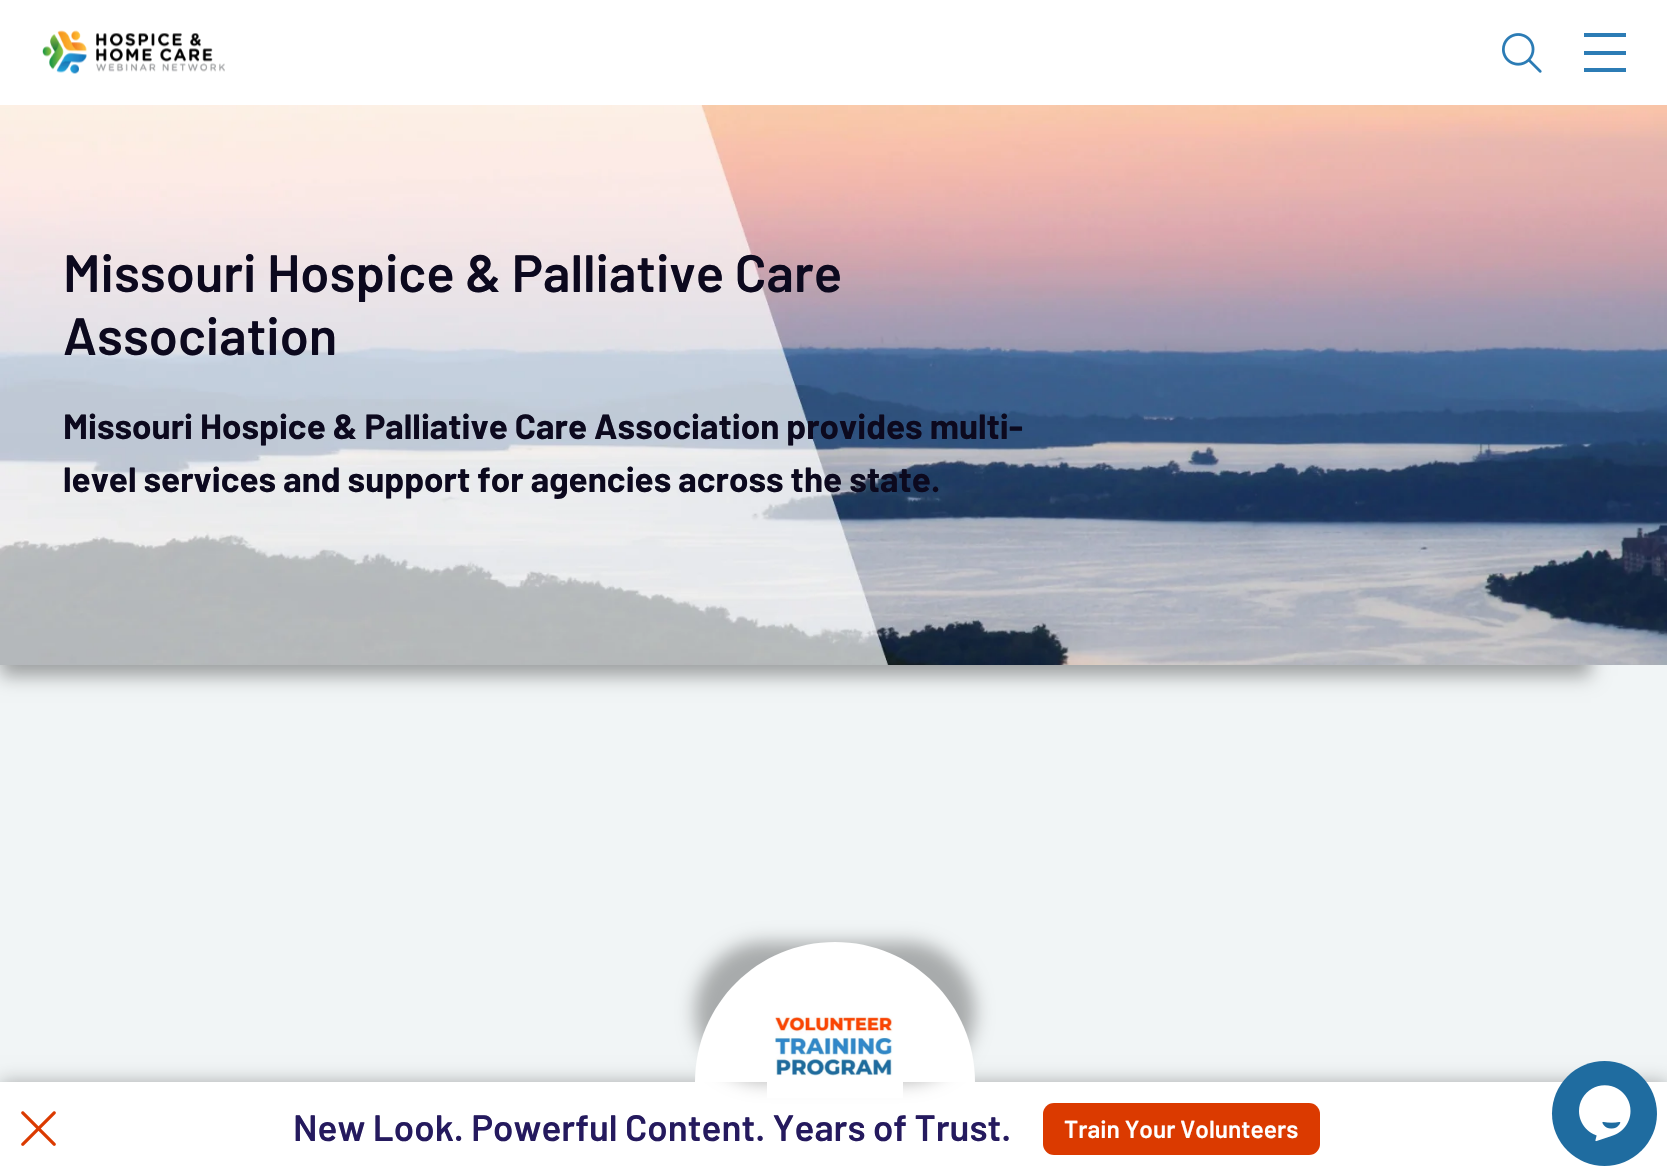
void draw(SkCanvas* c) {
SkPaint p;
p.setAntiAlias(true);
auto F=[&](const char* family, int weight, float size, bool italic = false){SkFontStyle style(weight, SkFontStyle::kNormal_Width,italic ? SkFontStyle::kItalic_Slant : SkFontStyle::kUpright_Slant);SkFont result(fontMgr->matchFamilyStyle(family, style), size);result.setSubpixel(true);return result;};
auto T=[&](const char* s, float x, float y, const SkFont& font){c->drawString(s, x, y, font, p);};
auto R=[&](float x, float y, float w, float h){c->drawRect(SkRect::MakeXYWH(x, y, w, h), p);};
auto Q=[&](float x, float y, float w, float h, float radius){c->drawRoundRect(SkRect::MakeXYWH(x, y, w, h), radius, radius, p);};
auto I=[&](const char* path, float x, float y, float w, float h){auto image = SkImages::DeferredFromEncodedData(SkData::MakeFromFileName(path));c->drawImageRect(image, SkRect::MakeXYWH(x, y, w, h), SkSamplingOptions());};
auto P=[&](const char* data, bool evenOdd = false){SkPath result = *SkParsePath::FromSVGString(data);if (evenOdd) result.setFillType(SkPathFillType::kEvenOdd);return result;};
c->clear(0xfff1f5f6);
p.setColor(0xffffffff);
R(0,0,1667,105);
I("1.png",42,30,183,44);
I("2.png",1502,33,40,40);
p.setColor(0xff2c7cb5);
R(1584,33,42,4);
R(1584,51,42,4);
R(1584,68,42,4);
p.setColor(0x59000000);
p.setMaskFilter(SkMaskFilter::MakeBlur(kNormal_SkBlurStyle, 9));
c->drawRect(SkRect::MakeXYWH(0,193,1591,483),p);
p.setMaskFilter(nullptr);
I("3.png",0,105,1667,560);
auto f1 = F("Barlow",600,52.5);
p.setColor(0xff0c091e);
T("Missouri Hospice & Palliative Care",63,292,f1);
T("Association",63,355,f1);
auto f2 = F("Barlow",700,35);
T("Missouri Hospice & Palliative Care Association provides multi-",63,439,f2);
T("level services and support for agencies across the state.",63,492,f2);
p.setColor(0x4d000000);
p.setMaskFilter(SkMaskFilter::MakeBlur(kNormal_SkBlurStyle, 9));
c->drawRect(SkRect::MakeXYWH(0,1082,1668,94),p);
p.setMaskFilter(nullptr);
p.setColor(0xffffffff);
R(0,1082,1667,93);
p.setColor(0x4d000000);
p.setMaskFilter(SkMaskFilter::MakeBlur(kNormal_SkBlurStyle, 9));
c->drawRoundRect(SkRect::MakeXYWH(695,942,280,140),140,140,p);
p.setMaskFilter(nullptr);
p.setColor(0xffffffff);
c->drawPath(P("M835 942c77.5 0 140 62.5 140 140h-280c0-77.5 62.5-140 140-140z"),p);
R(767,1082,136,16);
I("4.png",775,1016,118,60);
I("5.png",21,1111,35,35);
auto f3 = F("Barlow",600,36.75);
p.setColor(0xff251a5e);
T("New Look. Powerful Content. Years of Trust.",293,1141,f3);
p.setColor(0xffdb3a00);
Q(1043,1103,277,52,11);
auto f4 = F("Barlow",600,24.5);
p.setColor(0xffffffff);
T("Train Your Volunteers",1064,1138,f4);
p.setColor(0xff1f6ca0);
c->drawCircle(1604.5,1113.5,52.5,p);
I("6.png",1579,1085,52,57);
}
